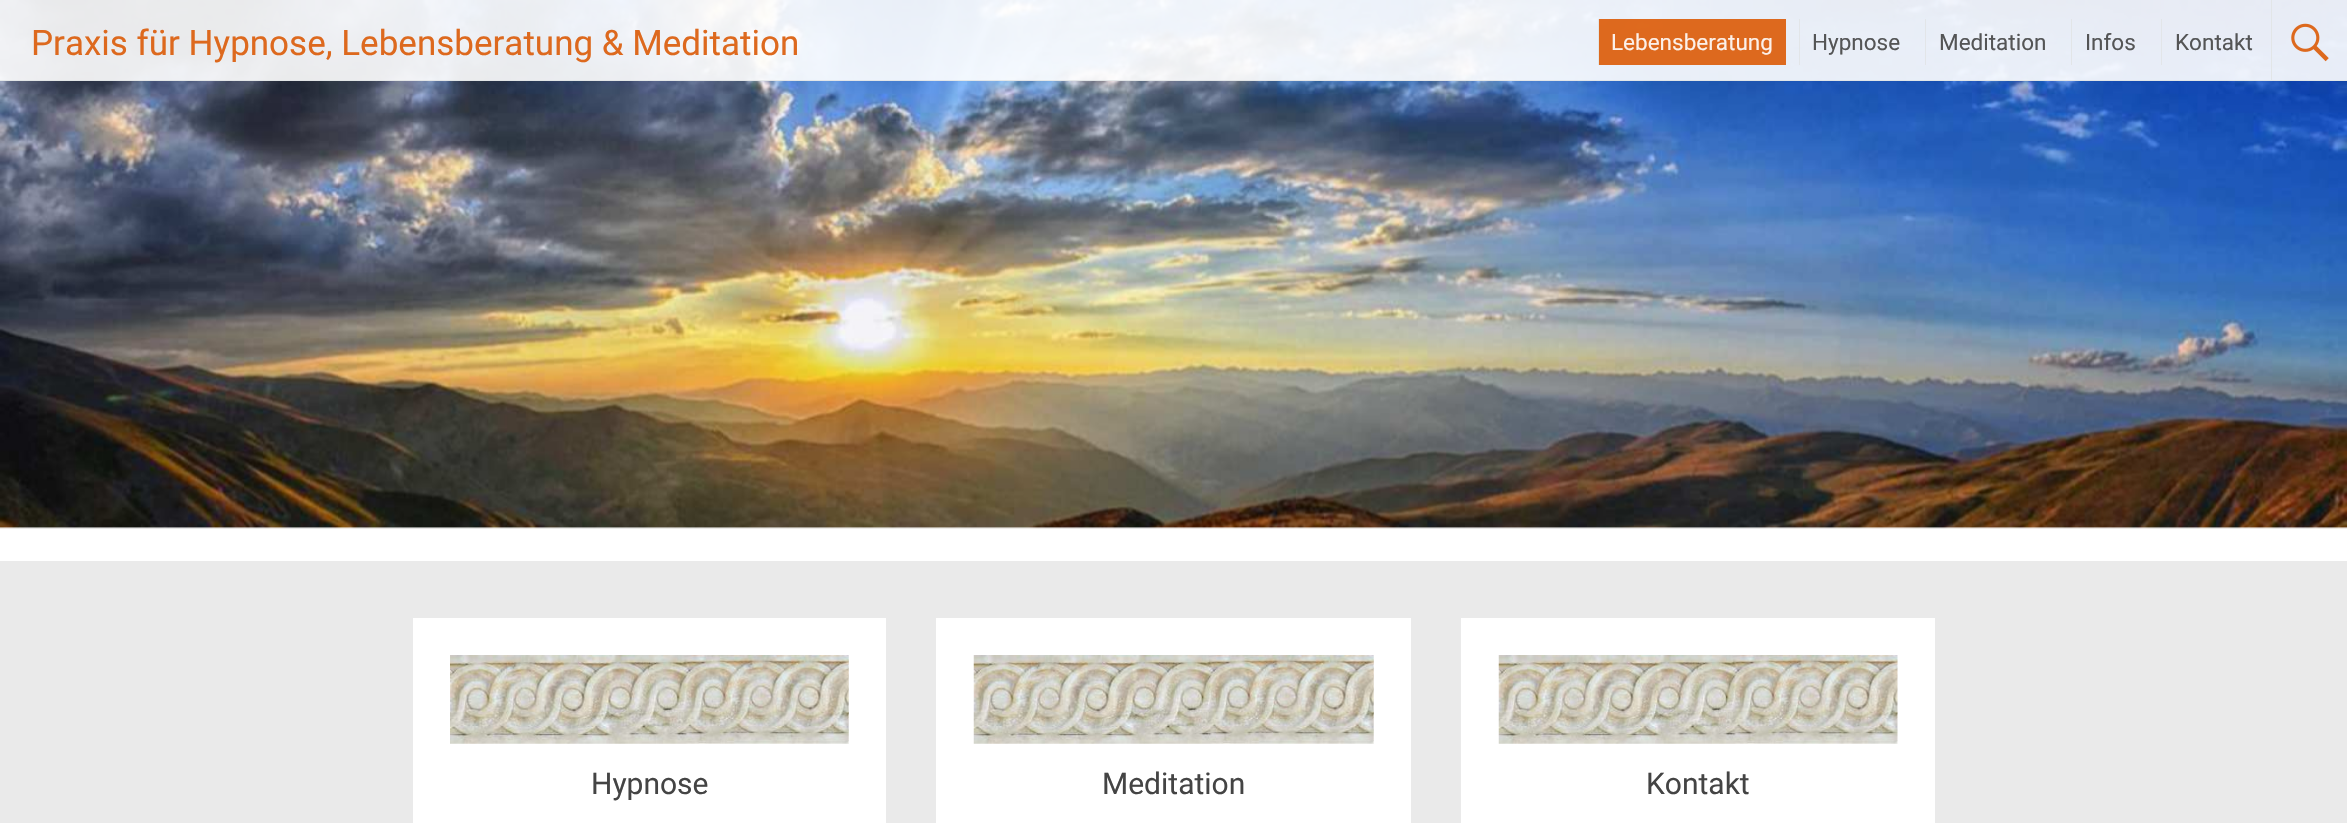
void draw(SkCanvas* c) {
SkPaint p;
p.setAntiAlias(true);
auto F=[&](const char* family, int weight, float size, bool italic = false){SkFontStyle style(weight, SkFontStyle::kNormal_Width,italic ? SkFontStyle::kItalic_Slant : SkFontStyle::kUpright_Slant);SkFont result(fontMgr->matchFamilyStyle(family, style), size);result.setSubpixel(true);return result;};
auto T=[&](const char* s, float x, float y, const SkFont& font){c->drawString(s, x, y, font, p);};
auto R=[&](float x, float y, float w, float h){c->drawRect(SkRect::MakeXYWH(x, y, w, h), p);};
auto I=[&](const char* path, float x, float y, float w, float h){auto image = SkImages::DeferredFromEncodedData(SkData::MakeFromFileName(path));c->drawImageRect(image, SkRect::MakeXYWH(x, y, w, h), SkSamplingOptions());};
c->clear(0xffffffff);
I("1.png",0,0,2347,529);
p.setColor(0xe6ffffff);
R(0,0,2347,81);
p.setColor(0xe6e1e4e6);
R(0,80,2347,1);
auto f1 = F("Roboto",400,35);
p.setColor(0xffdd691e);
T("Praxis für Hypnose, Lebensberatung & Meditation",31,55,f1);
p.setColor(0xe6e1e4e6);
R(1598,19,1,46);
p.setColor(0xe6db5a06);
R(1599,19,187,46);
auto f2 = F("Roboto",400,22.5);
p.setColor(0xfffcf0e9);
T("Lebensberatung",1611,50,f2);
p.setColor(0xffe2e5e8);
R(1799,19,1,46);
p.setColor(0xff545556);
T("Hypnose",1812,50,f2);
p.setColor(0xffe2e5e8);
R(1925,19,1,46);
p.setColor(0xff545556);
T("Meditation",1939,50,f2);
p.setColor(0xe6e1e4e6);
R(2071,19,1,46);
p.setColor(0xff545556);
T("Infos",2085,50,f2);
p.setColor(0xffe2e5e8);
R(2161,19,1,46);
p.setColor(0xff545556);
T("Kontakt",2175,50,f2);
p.setColor(0xe6e1e4e6);
R(2271,0,1,80);
I("2.png",2291,23,38,39);
p.setColor(0xffeaeaea);
R(0,561,2347,262);
p.setColor(0xffffffff);
R(413,618,473,205);
I("3.png",450,655,399,89);
auto f3 = F("Roboto",400,30);
p.setColor(0xff444444);
T("Hypnose",591,794,f3);
p.setColor(0xffffffff);
R(936,618,475,205);
I("4.png",973,655,401,89);
p.setColor(0xff444444);
T("Meditation",1102,794,f3);
p.setColor(0xffffffff);
R(1461,618,474,205);
I("5.png",1498,655,400,89);
p.setColor(0xff444444);
T("Kontakt",1646,794,f3);
}
